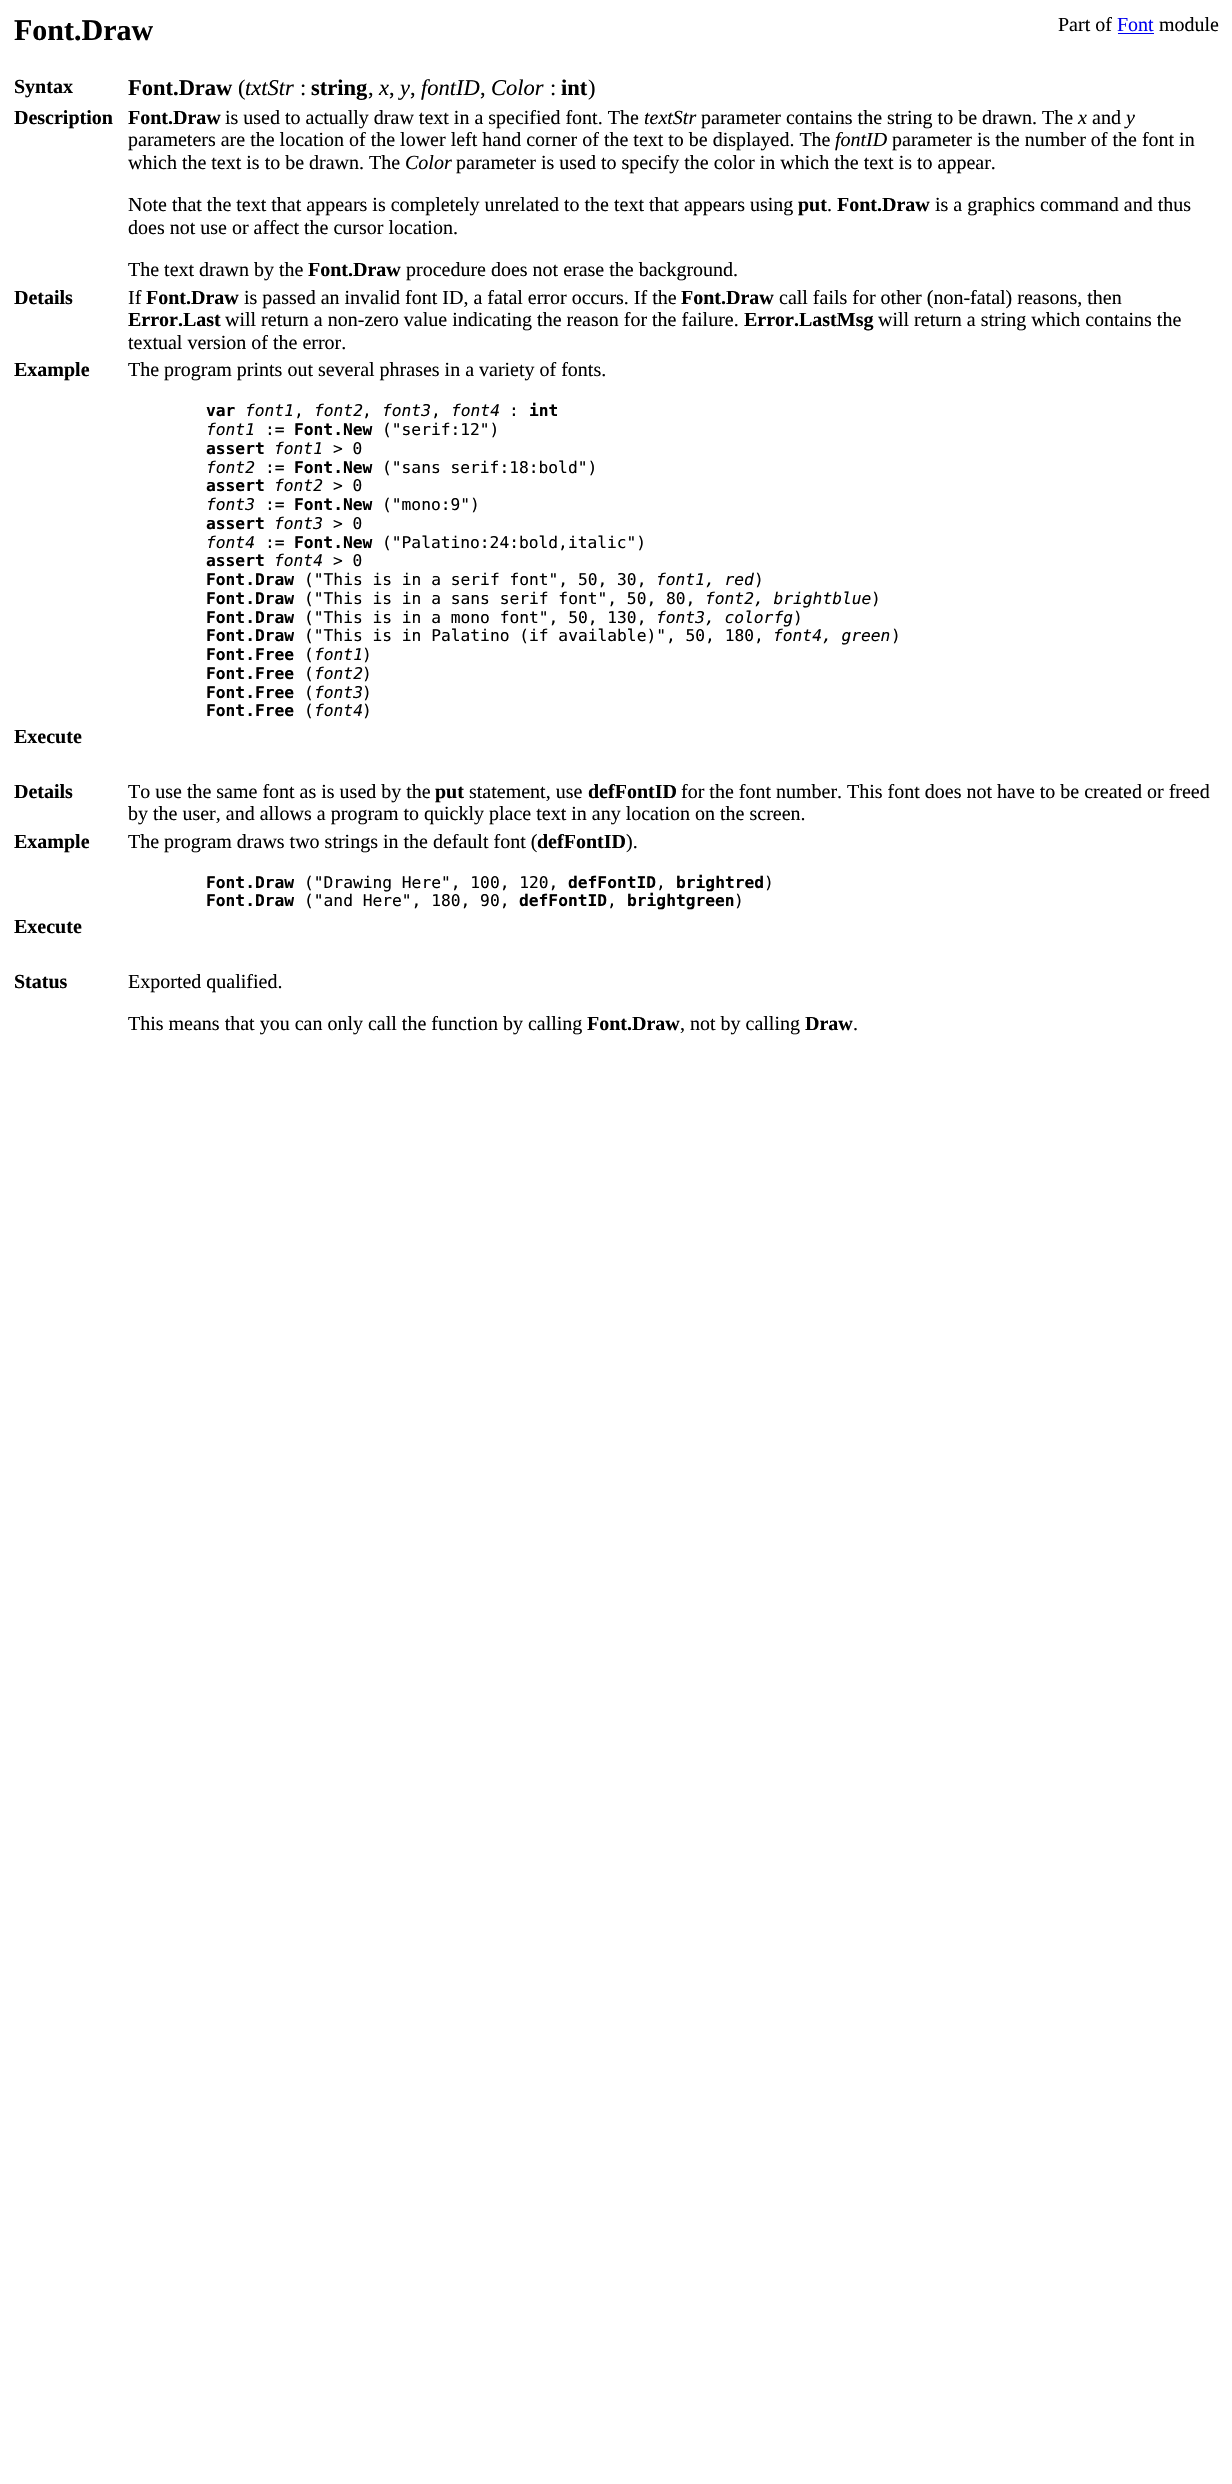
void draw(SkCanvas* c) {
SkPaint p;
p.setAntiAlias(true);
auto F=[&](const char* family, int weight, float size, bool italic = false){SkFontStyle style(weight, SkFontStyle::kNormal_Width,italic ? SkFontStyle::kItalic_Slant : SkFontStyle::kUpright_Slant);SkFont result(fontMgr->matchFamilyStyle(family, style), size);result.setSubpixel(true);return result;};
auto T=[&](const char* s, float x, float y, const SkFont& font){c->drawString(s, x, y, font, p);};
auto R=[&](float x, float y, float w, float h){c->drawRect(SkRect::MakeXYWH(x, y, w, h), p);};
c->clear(0xffffffff);
auto f1 = F("Liberation Serif",700,30);
p.setColor(0xff000000);
T("Font.Draw",14,40,f1);
auto f2 = F("Liberation Serif",400,20);
T("Part of",1058,31,f2);
p.setColor(0xff0000ee);
T("Font",1117,31,f2);
R(1118,33,36,1);
p.setColor(0xff000000);
T("module",1159,31,f2);
auto f3 = F("Liberation Serif",700,20);
T("Syntax",14,93,f3);
auto f4 = F("Liberation Serif",700,22.5);
T("Font.Draw",128,95,f4);
auto f5 = F("Liberation Serif",400,22.5);
T("(",238,95,f5);
auto f6 = F("Liberation Serif",400,22.5,true);
T("txtStr",245,95,f6);
T(":",300,95,f5);
T("string",311,95,f4);
T(",",368,95,f5);
T("x",379,95,f6);
T(",",389,95,f5);
T("y",400,95,f6);
T(",",410,95,f5);
T("fontID",421,95,f6);
T(",",480,95,f5);
T("Color",491,95,f6);
T(":",550,95,f5);
T("int",561,95,f4);
T(")",588,95,f5);
T("Description",14,124,f3);
T("Font.Draw",128,124,f3);
T("is used to actually draw text in a specified font. The",225,124,f2);
auto f7 = F("Liberation Serif",400,20,true);
T("textStr",644,124,f7);
T("parameter contains the string to be drawn. The",701,124,f2);
T("x",1078,124,f7);
T("and",1092,124,f2);
T("y",1126,124,f7);
T("parameters are the location of the lower left hand corner of the text to be displayed. The",128,146,f2);
T("fontID",835,146,f7);
T("parameter is the number of the font in",892,146,f2);
T("which the text is to be drawn. The",128,169,f2);
T("Color",405,169,f7);
T("parameter is used to specify the color in which the text is to appear.",456,169,f2);
T("Note that the text that appears is completely unrelated to the text that appears using",128,211,f2);
T("put",798,211,f3);
T(".",827,211,f2);
T("Font.Draw",837,211,f3);
T("is a graphics command and thus",935,211,f2);
T("does not use or affect the cursor location.",128,234,f2);
T("The text drawn by the",128,276,f2);
T("Font.Draw",308,276,f3);
T("procedure does not erase the background.",406,276,f2);
T("Details",14,304,f3);
T("If",128,304,f2);
T("Font.Draw",146,304,f3);
T("is passed an invalid font ID, a fatal error occurs. If the",244,304,f2);
T("Font.Draw",681,304,f3);
T("call fails for other (non-fatal) reasons, then",779,304,f2);
T("Error.Last",128,326,f3);
T("will return a non-zero value indicating the reason for the failure.",225,326,f2);
T("Error.LastMsg",744,326,f3);
T("will return a string which contains the",878,326,f2);
T("textual version of the error.",128,349,f2);
T("Example",14,376,f3);
T("The program prints out several phrases in a variety of fonts.",128,376,f2);
auto f8 = F("DejaVu Sans Mono",700,16.25);
T("var",206,416,f8);
auto f9 = F("DejaVu Sans Mono",400,16.25,true);
T("font1",245,416,f9);
auto f10 = F("DejaVu Sans Mono",400,16.25);
T(",",294,416,f10);
T("font2",314,416,f9);
T(",",362,416,f10);
T("font3",382,416,f9);
T(",",431,416,f10);
T("font4",451,416,f9);
T(":",509,416,f10);
T("int",529,416,f8);
T("font1",206,435,f9);
T(":=",265,435,f10);
T("Font.New",294,435,f8);
T("(\"serif:12\")",382,435,f10);
T("assert",206,454,f8);
T("font1",274,454,f9);
T("> 0",333,454,f10);
T("font2",206,473,f9);
T(":=",265,473,f10);
T("Font.New",294,473,f8);
T("(\"sans serif:18:bold\")",382,473,f10);
T("assert",206,491,f8);
T("font2",274,491,f9);
T("> 0",333,491,f10);
T("font3",206,510,f9);
T(":=",265,510,f10);
T("Font.New",294,510,f8);
T("(\"mono:9\")",382,510,f10);
T("assert",206,529,f8);
T("font3",274,529,f9);
T("> 0",333,529,f10);
T("font4",206,548,f9);
T(":=",265,548,f10);
T("Font.New",294,548,f8);
T("(\"Palatino:24:bold,italic\")",382,548,f10);
T("assert",206,566,f8);
T("font4",274,566,f9);
T("> 0",333,566,f10);
T("Font.Draw",206,585,f8);
T("(\"This is in a serif font\", 50, 30,",304,585,f10);
T("font1, red",656,585,f9);
T(")",754,585,f10);
T("Font.Draw",206,604,f8);
T("(\"This is in a sans serif font\", 50, 80,",304,604,f10);
T("font2, brightblue",705,604,f9);
T(")",871,604,f10);
T("Font.Draw",206,623,f8);
T("(\"This is in a mono font\", 50, 130,",304,623,f10);
T("font3, colorfg",656,623,f9);
T(")",793,623,f10);
T("Font.Draw",206,641,f8);
T("(\"This is in Palatino (if available)\", 50, 180,",304,641,f10);
T("font4, green",773,641,f9);
T(")",891,641,f10);
T("Font.Free",206,660,f8);
T("(",304,660,f10);
T("font1",314,660,f9);
T(")",362,660,f10);
T("Font.Free",206,679,f8);
T("(",304,679,f10);
T("font2",314,679,f9);
T(")",362,679,f10);
T("Font.Free",206,698,f8);
T("(",304,698,f10);
T("font3",314,698,f9);
T(")",362,698,f10);
T("Font.Free",206,716,f8);
T("(",304,716,f10);
T("font4",314,716,f9);
T(")",362,716,f10);
T("Execute",14,743,f3);
T("Details",14,798,f3);
T("To use the same font as is used by the",128,798,f2);
T("put",435,798,f3);
T("statement, use",469,798,f2);
T("defFontID",588,798,f3);
T("for the font number. This font does not have to be created or freed",681,798,f2);
T("by the user, and allows a program to quickly place text in any location on the screen.",128,820,f2);
T("Example",14,848,f3);
T("The program draws two strings in the default font (",128,848,f2);
T("defFontID",537,848,f3);
T(").",626,848,f2);
T("Font.Draw",206,888,f8);
T("(\"Drawing Here\", 100, 120,",304,888,f10);
T("defFontID",568,888,f8);
T(",",656,888,f10);
T("brightred",676,888,f8);
T(")",764,888,f10);
T("Font.Draw",206,906,f8);
T("(\"and Here\", 180, 90,",304,906,f10);
T("defFontID",519,906,f8);
T(",",607,906,f10);
T("brightgreen",627,906,f8);
T(")",734,906,f10);
T("Execute",14,933,f3);
T("Status",14,988,f3);
T("Exported qualified.",128,988,f2);
T("This means that you can only call the function by calling",128,1030,f2);
T("Font.Draw",587,1030,f3);
T(", not by calling",680,1030,f2);
T("Draw",805,1030,f3);
T(".",853,1030,f2);
}
